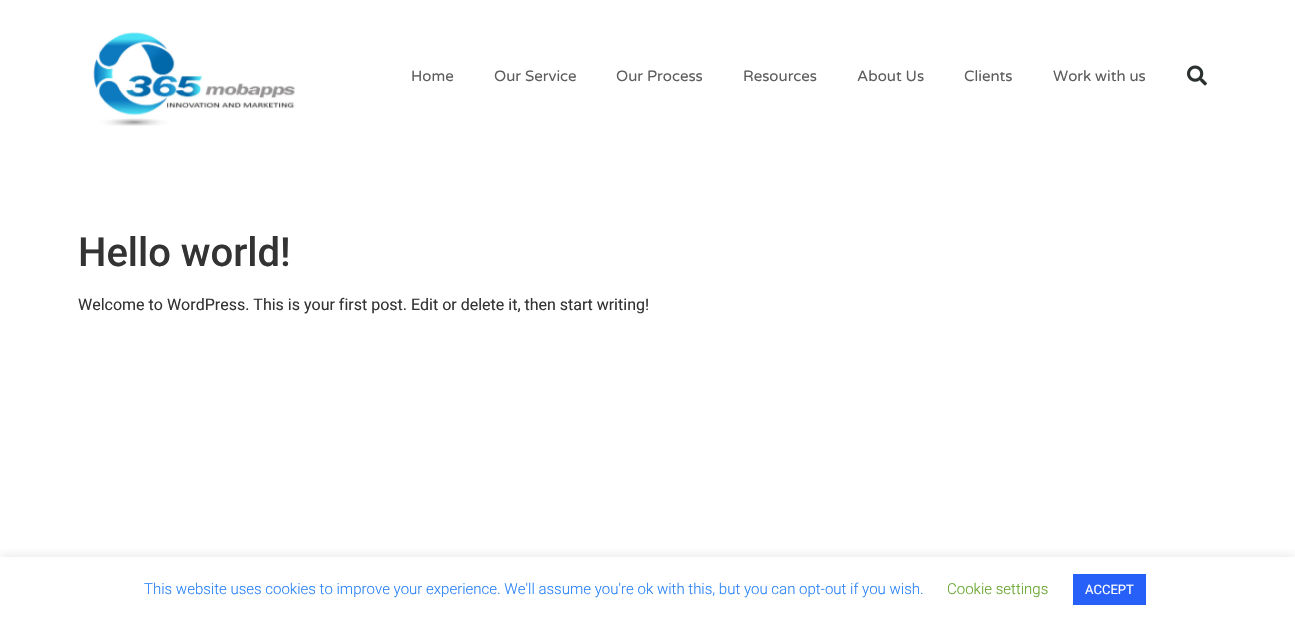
void draw(SkCanvas* c) {
SkPaint p;
p.setAntiAlias(true);
auto F=[&](const char* family, int weight, float size, bool italic = false){SkFontStyle style(weight, SkFontStyle::kNormal_Width,italic ? SkFontStyle::kItalic_Slant : SkFontStyle::kUpright_Slant);SkFont result(fontMgr->matchFamilyStyle(family, style), size);result.setSubpixel(true);return result;};
auto T=[&](const char* s, float x, float y, const SkFont& font){c->drawString(s, x, y, font, p);};
auto R=[&](float x, float y, float w, float h){c->drawRect(SkRect::MakeXYWH(x, y, w, h), p);};
auto I=[&](const char* path, float x, float y, float w, float h){auto image = SkImages::DeferredFromEncodedData(SkData::MakeFromFileName(path));c->drawImageRect(image, SkRect::MakeXYWH(x, y, w, h), SkSamplingOptions());};
c->clear(0xffffffff);
I("1.png",93,32,203,94);
auto f1 = F("Varela Round",400,15);
p.setColor(0xff5e5c5c);
T("Home",411,81,f1);
T("Our Service",494,81,f1);
T("Our Process",616,81,f1);
T("Resources",743,81,f1);
T("About Us",857,81,f1);
T("Clients",964,81,f1);
T("Work with us",1053,81,f1);
I("2.png",1187,65,20,21);
auto f2 = F("Roboto",500,40);
p.setColor(0xff333333);
T("Hello world!",78,266,f2);
auto f3 = F("Roboto",400,16);
T("Welcome to WordPress. This is your first post. Edit or delete it, then start writing!",78,310,f3);
c->save();
c->clipRect(SkRect::MakeXYWH(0,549,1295,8));
p.setColor(0x4dacabab);
p.setMaskFilter(SkMaskFilter::MakeBlur(kNormal_SkBlurStyle, 5));
c->drawRect(SkRect::MakeXYWH(0,556,1295,65),p);
p.setMaskFilter(nullptr);
c->restore();
auto f4 = F("Roboto",300,15);
p.setColor(0xff2781f7);
T("This website uses cookies to improve your experience. We'll assume you're ok with this, but you can opt-out if you wish.",144,594,f4);
p.setColor(0xff62a329);
T("Cookie settings",947,594,f4);
p.setColor(0xff275ff9);
R(1073,574,73,31);
auto f5 = F("Roboto",400,13);
p.setColor(0xffffffff);
T("ACCEPT",1085,594,f5);
}
